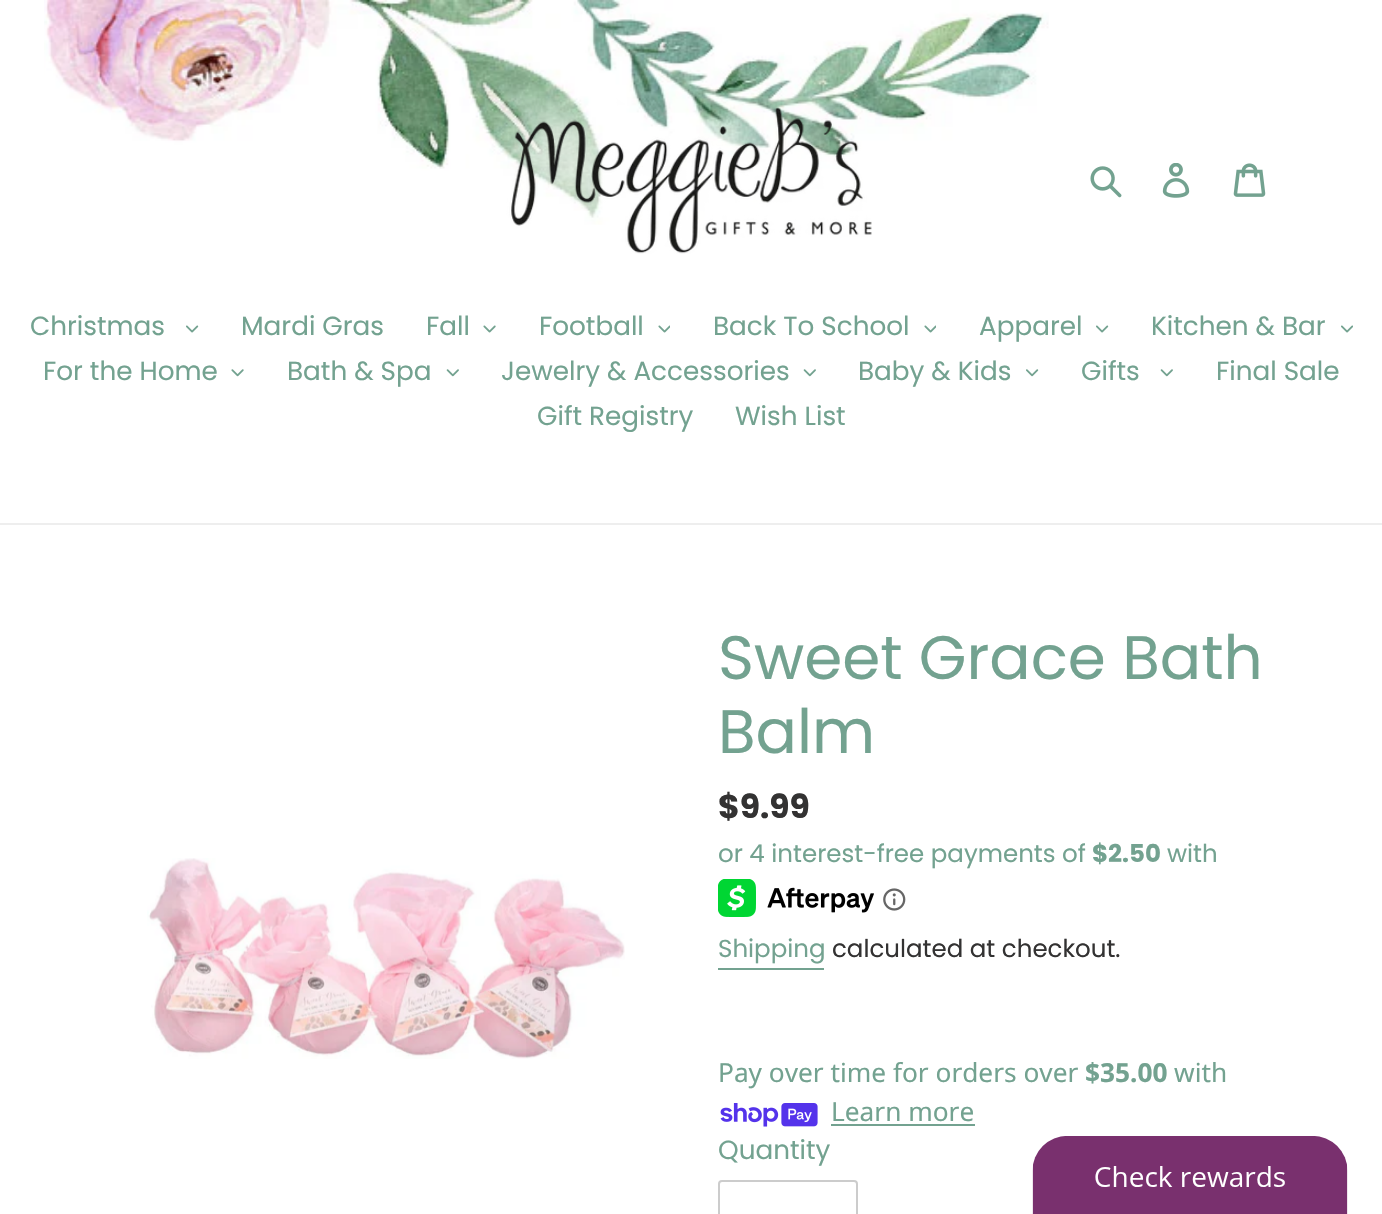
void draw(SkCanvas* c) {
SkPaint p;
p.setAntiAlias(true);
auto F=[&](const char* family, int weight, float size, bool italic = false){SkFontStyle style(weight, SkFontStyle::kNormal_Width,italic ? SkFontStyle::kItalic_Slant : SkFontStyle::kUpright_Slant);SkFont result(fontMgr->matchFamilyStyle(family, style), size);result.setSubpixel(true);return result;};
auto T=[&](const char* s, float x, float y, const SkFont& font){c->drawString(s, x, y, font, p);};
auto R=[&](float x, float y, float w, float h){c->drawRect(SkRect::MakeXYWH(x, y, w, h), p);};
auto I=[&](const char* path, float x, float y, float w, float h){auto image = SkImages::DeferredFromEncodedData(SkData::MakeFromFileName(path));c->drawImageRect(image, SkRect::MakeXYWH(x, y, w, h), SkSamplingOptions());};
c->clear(0xffffffff);
I("1.png",44,0,1005,225);
I("2.png",494,96,378,158);
I("3.png",1090,166,32,32);
I("4.png",1162,163,28,35);
I("5.png",1233,163,33,34);
p.setColor(0xffeeeeee);
R(0,523,1382,2);
auto f1 = F("Poppins",400,26.25);
p.setColor(0xff73a290);
T("Christmas",30,335,f1);
I("6.png",186,325,13,8);
T("Mardi Gras",241,335,f1);
T("Fall",426,335,f1);
I("7.png",483,325,13,8);
T("Football",539,335,f1);
I("8.png",658,325,12,8);
T("Back To School",713,335,f1);
I("8.png",924,325,12,8);
T("Apparel",979,335,f1);
I("6.png",1096,325,13,8);
T("Kitchen & Bar",1151,335,f1);
I("9.png",1341,325,12,8);
T("For the Home",43,380,f1);
I("10.png",231,369,13,8);
T("Bath & Spa",287,380,f1);
I("11.png",446,369,13,8);
T("Jewelry & Accessories",501,380,f1);
I("11.png",803,369,13,8);
T("Baby & Kids",858,380,f1);
I("12.png",1026,369,13,8);
T("Gifts",1081,380,f1);
I("11.png",1160,369,13,8);
T("Final Sale",1216,380,f1);
T("Gift Registry",537,425,f1);
T("Wish List",735,425,f1);
I("13.png",147,858,478,201);
auto f2 = F("Poppins",400,61.25);
T("Sweet Grace Bath",718,679,f2);
T("Balm",718,753,f2);
auto f3 = F("Poppins",700,33);
p.setColor(0xff333232);
T("$9.99",718,818,f3);
auto f4 = F("Poppins",400,24.5);
p.setColor(0xff73a290);
T("or 4 interest-free payments of",718,862,f4);
auto f5 = F("Poppins",700,24.5);
T("$2.50",1092,862,f5);
T("with",1167,862,f4);
I("14.png",718,879,156,38);
I("15.png",883,888,23,23);
T("Shipping",718,957,f4);
R(718,968,106,2);
p.setColor(0xff333232);
T("calculated at checkout.",832,957,f4);
auto f6 = F("Noto Sans",400,26.25);
p.setColor(0xff73a290);
T("Pay over time for orders over",718,1082,f6);
auto f7 = F("Noto Sans",700,26.25);
T("$35.00",1085,1082,f7);
T("with",1174,1082,f6);
I("16.png",720,1103,98,24);
T("Learn more",831,1121,f6);
R(831,1124,144,2);
T("Quantity",718,1159,f1);
p.setStroke(true);
p.setStrokeWidth(2);
p.setColor(0xffcccccc);
c->drawRoundRect(SkRect::MakeXYWH(719,1181,138,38),3,3,p);
I("17.png",1032,1136,316,78);
}
